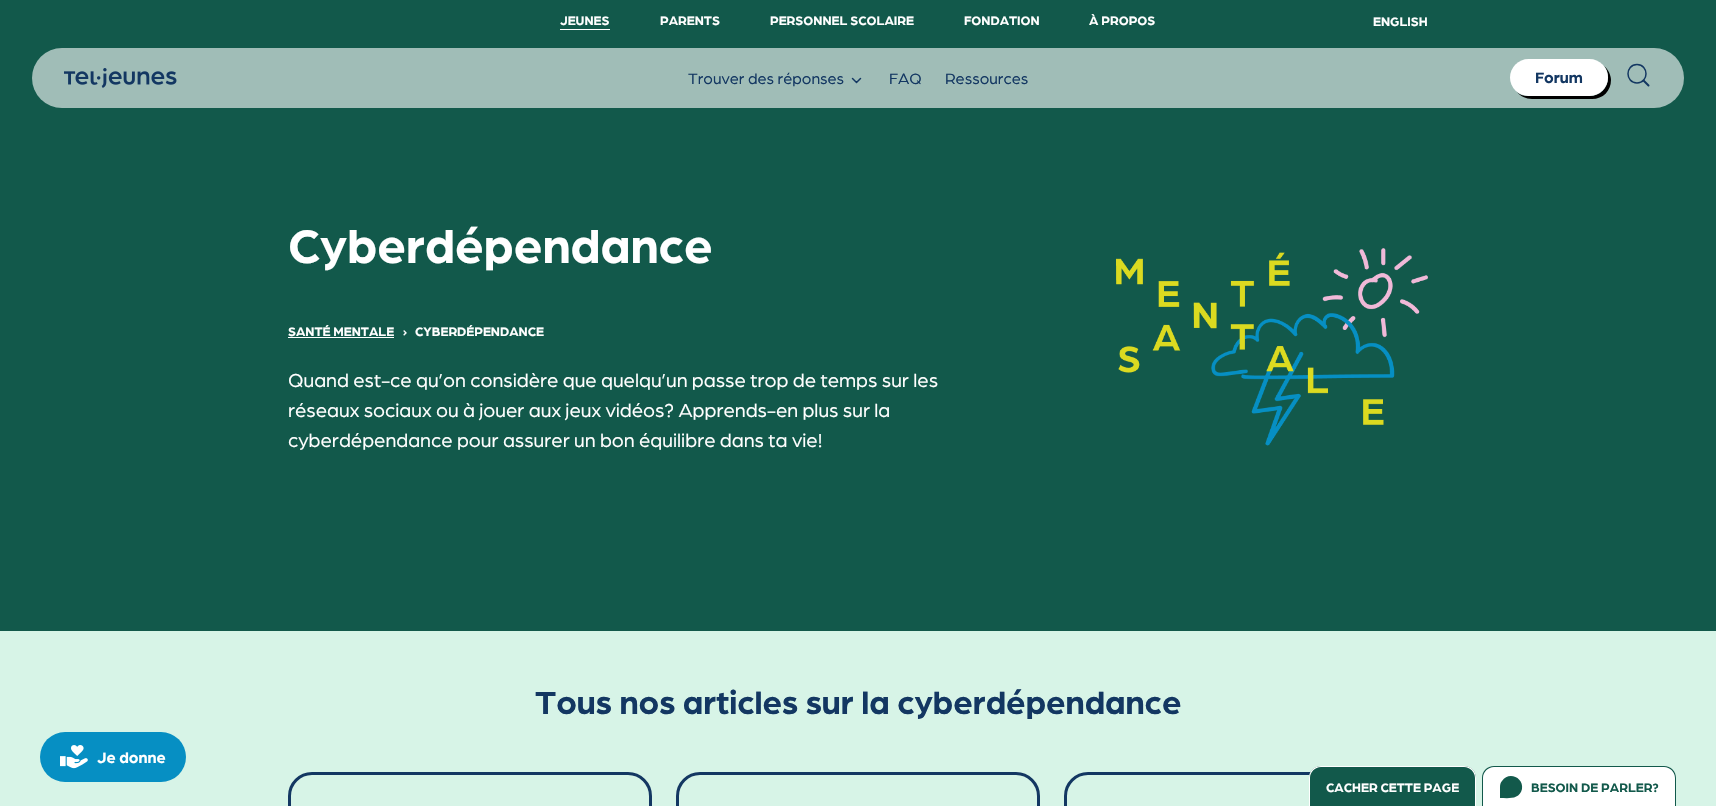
void draw(SkCanvas* c) {
SkPaint p;
p.setAntiAlias(true);
auto F=[&](const char* family, int weight, float size, bool italic = false){SkFontStyle style(weight, SkFontStyle::kNormal_Width,italic ? SkFontStyle::kItalic_Slant : SkFontStyle::kUpright_Slant);SkFont result(fontMgr->matchFamilyStyle(family, style), size);result.setSubpixel(true);return result;};
auto T=[&](const char* s, float x, float y, const SkFont& font){c->drawString(s, x, y, font, p);};
auto R=[&](float x, float y, float w, float h){c->drawRect(SkRect::MakeXYWH(x, y, w, h), p);};
auto Q=[&](float x, float y, float w, float h, float radius){c->drawRoundRect(SkRect::MakeXYWH(x, y, w, h), radius, radius, p);};
auto I=[&](const char* path, float x, float y, float w, float h){auto image = SkImages::DeferredFromEncodedData(SkData::MakeFromFileName(path));c->drawImageRect(image, SkRect::MakeXYWH(x, y, w, h), SkSamplingOptions());};
auto P=[&](const char* data, bool evenOdd = false){SkPath result = *SkParsePath::FromSVGString(data);if (evenOdd) result.setFillType(SkPathFillType::kEvenOdd);return result;};
c->clear(0xffd7f4e7);
p.setColor(0xff068fc3);
Q(40,732,146,50,25);
I("1.png",60,745,28,24);
auto f1 = F("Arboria",700,16);
p.setColor(0xffffffff);
T("Je donne",97,763,f1);
p.setColor(0xff12594b);
R(0,0,1716,631);
p.setColor(0xffffffff);
R(560,29,50,1);
auto f2 = F("Arboria",700,13);
T("JEUNES",560,25,f2);
T("PARENTS",660,25,f2);
T("PERSONNEL SCOLAIRE",770,25,f2);
T("FONDATION",964,25,f2);
T("À PROPOS",1089,25,f2);
T("ENGLISH",1373,26,f2);
p.setColor(0xffa0bdb7);
Q(32,48,1652,60,30);
I("2.png",64,68,113,20);
auto f3 = F("Arboria",400,16);
p.setColor(0xff133762);
T("Trouver des réponses",688,84,f3);
p.setStroke(true);
p.setStrokeWidth(1.5);
p.setStrokeCap(SkPaint::kRound_Cap);
p.setStrokeJoin(SkPaint::kRound_Join);
c->drawPath(P("M852.5 78.5l4 4l4-4"),p);
p.setStroke(false);
T("FAQ",889,84,f3);
T("Ressources",945,84,f3);
p.setColor(0xff000000);
c->drawPath(P("M1517 92c3 4 9 7 15 7h60c11 0 19-8 19-19c0-5-3-11-7-14c3 3 4 7 4 12c0 10-8 18-18 18h-62c-4 0-8-1-11-4z"),p);
p.setColor(0xffffffff);
Q(1510,59,98,37,18.5);
p.setColor(0xff133762);
T("Forum",1535,83,f1);
p.setStroke(true);
c->drawPath(P("M1637 83c12 0 12-18.5 0-18.5c-12 0-12 18.5 0 18.5z"),p);
p.setStrokeWidth(2);
c->drawPath(P("M1648.5 85.5l-5-5"),p);
auto f4 = F("Arboria",700,50);
p.setStroke(false);
p.setColor(0xffffffff);
T("Cyberdépendance",288,263,f4);
T("SANTÉ MENTALE",288,336,f2);
R(288,337,106,1);
T("›",403,336,f2);
T("CYBERDÉPENDANCE",415,336,f2);
auto f5 = F("Arboria",400,20);
T("Quand est-ce qu’on considère que quelqu’un passe trop de temps sur les",288,387,f5);
T("réseaux sociaux ou à jouer aux jeux vidéos? Apprends-en plus sur la",288,417,f5);
T("cyberdépendance pour assurer un bon équilibre dans ta vie!",288,447,f5);
I("3.png",1116,248,312,198);
auto f6 = F("Arboria",700,34);
p.setColor(0xff133762);
T("Tous nos articles sur la cyberdépendance",535,714,f6);
p.setStroke(true);
p.setStrokeWidth(3);
p.setStrokeCap(SkPaint::kButt_Cap);
p.setStrokeJoin(SkPaint::kMiter_Join);
c->drawRoundRect(SkRect::MakeXYWH(289.5,773.5,361,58),22.5,22.5,p);
c->drawRoundRect(SkRect::MakeXYWH(677.5,773.5,361,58),22.5,22.5,p);
c->drawRoundRect(SkRect::MakeXYWH(1065.5,773.5,361,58),22.5,22.5,p);
p.setStroke(false);
p.setColor(0xff12594b);
c->drawPath(P("M1321 766h143c6.5 0 12 5.5 12 12v28h-167v-28c0-6.5 5.5-12 12-12z"),p);
p.setColor(0xffffffff);
c->drawPath(P("M1321 766h143c7 0 12 5 12 12v28h-167v-28c0-7 5-12 12-12zm0 1h143c6 0 11 5 11 11v28h-165v-28c0-6 5-11 11-11z",true),p);
T("CACHER CETTE PAGE",1326,792,f2);
c->drawPath(P("M1494 766h170c6.5 0 12 5.5 12 12v28h-194v-28c0-6.5 5.5-12 12-12z"),p);
p.setColor(0xff12594b);
c->drawPath(P("M1494 766h170c7 0 12 5 12 12v28h-194v-28c0-7 5-12 12-12zm0 1h170c6 0 11 5 11 11v28h-192v-28c0-6 5-11 11-11z",true),p);
c->drawPath(P("M1500 787c0-2 .5-4.5 2-6c6.5-10 22-3.5 20 8c-2.5 11-14 9-22 9z"),p);
auto f7 = F("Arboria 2",700,13);
T("BESOIN DE PARLER?",1531,792,f7);
}
